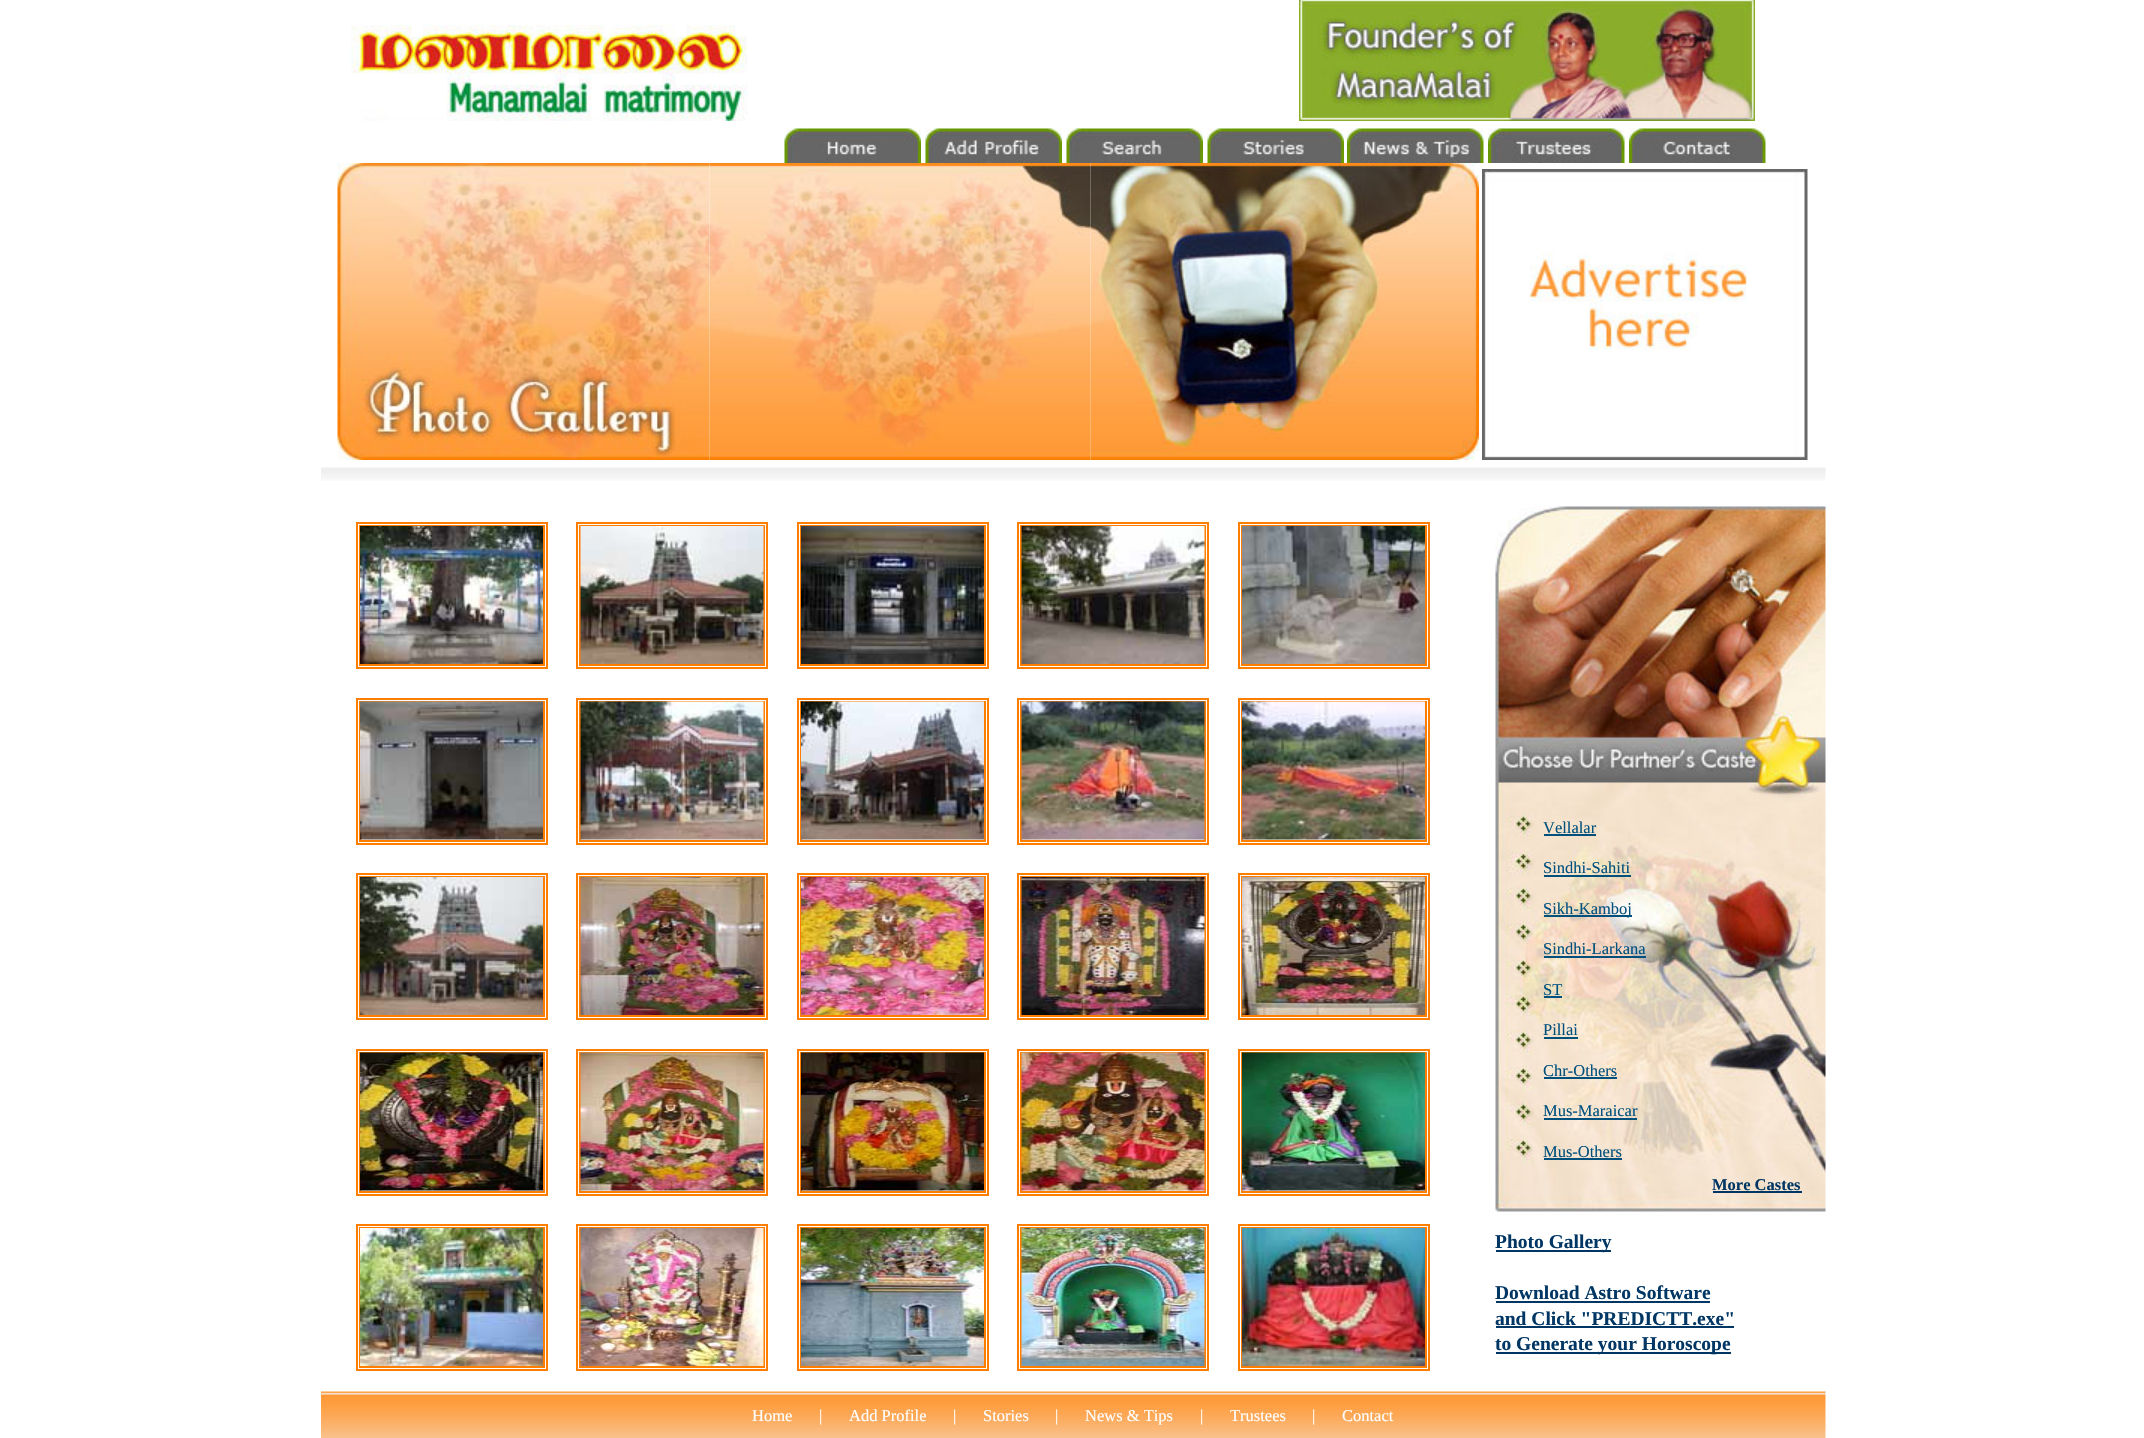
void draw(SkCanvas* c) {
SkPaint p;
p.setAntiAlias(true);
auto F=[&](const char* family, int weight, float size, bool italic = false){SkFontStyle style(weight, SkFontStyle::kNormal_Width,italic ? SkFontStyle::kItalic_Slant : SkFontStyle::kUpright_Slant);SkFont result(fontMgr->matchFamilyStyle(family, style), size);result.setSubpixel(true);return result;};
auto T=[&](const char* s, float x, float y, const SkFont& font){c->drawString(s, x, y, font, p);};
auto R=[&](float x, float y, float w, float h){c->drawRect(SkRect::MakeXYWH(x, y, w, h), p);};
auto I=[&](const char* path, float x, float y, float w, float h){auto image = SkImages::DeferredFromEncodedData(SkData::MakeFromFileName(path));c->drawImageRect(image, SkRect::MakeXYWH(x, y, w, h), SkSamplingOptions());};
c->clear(0xffffffff);
I("1.png",351,25,397,96);
I("2.png",1299,0,456,121);
I("3.png",784,128,137,35);
I("4.png",925,128,137,35);
I("5.png",1066,128,137,35);
I("6.png",1207,128,137,35);
I("7.png",1347,128,137,35);
I("8.png",1488,128,137,35);
I("9.png",1629,128,137,35);
I("10.png",337,163,373,297);
I("11.png",709,163,382,297);
I("12.png",1090,163,389,297);
I("13.png",1482,169,326,291);
I("14.png",321,467,1505,14);
p.setStroke(true);
p.setStrokeWidth(2);
p.setColor(0xffff7e00);
c->drawRect(SkRect::MakeXYWH(357,523,190,145),p);
c->drawRect(SkRect::MakeXYWH(360,526,184,139),p);
I("15.png",360,526,183,138);
c->drawRect(SkRect::MakeXYWH(577,523,190,145),p);
c->drawRect(SkRect::MakeXYWH(580,526,184,139),p);
I("16.png",580,526,184,138);
c->drawRect(SkRect::MakeXYWH(798,523,190,145),p);
c->drawRect(SkRect::MakeXYWH(801,526,184,139),p);
I("17.png",801,526,183,138);
c->drawRect(SkRect::MakeXYWH(1018,523,190,145),p);
c->drawRect(SkRect::MakeXYWH(1021,526,184,139),p);
I("18.png",1021,526,184,138);
c->drawRect(SkRect::MakeXYWH(1239,523,190,145),p);
c->drawRect(SkRect::MakeXYWH(1242,526,184,139),p);
I("19.png",1242,526,183,138);
c->drawRect(SkRect::MakeXYWH(357,699,190,145),p);
c->drawRect(SkRect::MakeXYWH(360,702,184,139),p);
I("20.png",360,701,183,139);
c->drawRect(SkRect::MakeXYWH(577,699,190,145),p);
c->drawRect(SkRect::MakeXYWH(580,702,184,139),p);
I("21.png",580,701,184,139);
c->drawRect(SkRect::MakeXYWH(798,699,190,145),p);
c->drawRect(SkRect::MakeXYWH(801,702,184,139),p);
I("22.png",801,701,183,139);
c->drawRect(SkRect::MakeXYWH(1018,699,190,145),p);
c->drawRect(SkRect::MakeXYWH(1021,702,184,139),p);
I("23.png",1021,701,184,139);
c->drawRect(SkRect::MakeXYWH(1239,699,190,145),p);
c->drawRect(SkRect::MakeXYWH(1242,702,184,139),p);
I("24.png",1242,701,183,139);
c->drawRect(SkRect::MakeXYWH(357,874,190,145),p);
c->drawRect(SkRect::MakeXYWH(360,877,184,139),p);
I("25.png",360,877,183,138);
c->drawRect(SkRect::MakeXYWH(577,874,190,145),p);
c->drawRect(SkRect::MakeXYWH(580,877,184,139),p);
I("26.png",580,877,184,138);
c->drawRect(SkRect::MakeXYWH(798,874,190,145),p);
c->drawRect(SkRect::MakeXYWH(801,877,184,139),p);
I("27.png",801,877,183,138);
c->drawRect(SkRect::MakeXYWH(1018,874,190,145),p);
c->drawRect(SkRect::MakeXYWH(1021,877,184,139),p);
I("28.png",1021,877,184,138);
c->drawRect(SkRect::MakeXYWH(1239,874,190,145),p);
c->drawRect(SkRect::MakeXYWH(1242,877,184,139),p);
I("29.png",1242,877,183,138);
c->drawRect(SkRect::MakeXYWH(357,1050,190,145),p);
c->drawRect(SkRect::MakeXYWH(360,1053,184,139),p);
I("30.png",360,1052,183,139);
c->drawRect(SkRect::MakeXYWH(577,1050,190,145),p);
c->drawRect(SkRect::MakeXYWH(580,1053,184,139),p);
I("31.png",580,1052,184,139);
c->drawRect(SkRect::MakeXYWH(798,1050,190,145),p);
c->drawRect(SkRect::MakeXYWH(801,1053,184,139),p);
I("32.png",801,1052,183,139);
c->drawRect(SkRect::MakeXYWH(1018,1050,190,145),p);
c->drawRect(SkRect::MakeXYWH(1021,1053,184,139),p);
I("33.png",1021,1052,184,139);
c->drawRect(SkRect::MakeXYWH(1239,1050,190,145),p);
c->drawRect(SkRect::MakeXYWH(1242,1053,184,139),p);
I("34.png",1242,1052,183,139);
c->drawRect(SkRect::MakeXYWH(357,1225,190,145),p);
c->drawRect(SkRect::MakeXYWH(360,1228,184,139),p);
I("35.png",360,1228,183,138);
c->drawRect(SkRect::MakeXYWH(577,1225,190,145),p);
c->drawRect(SkRect::MakeXYWH(580,1228,184,139),p);
I("36.png",580,1228,184,138);
c->drawRect(SkRect::MakeXYWH(798,1225,190,145),p);
c->drawRect(SkRect::MakeXYWH(801,1228,184,139),p);
I("37.png",801,1228,183,138);
c->drawRect(SkRect::MakeXYWH(1018,1225,190,145),p);
c->drawRect(SkRect::MakeXYWH(1021,1228,184,139),p);
I("38.png",1021,1228,184,138);
c->drawRect(SkRect::MakeXYWH(1239,1225,190,145),p);
c->drawRect(SkRect::MakeXYWH(1242,1228,184,139),p);
I("39.png",1242,1228,183,138);
I("40.png",1495,506,331,296);
I("41.png",1495,802,331,410);
auto f1 = F("Liberation Serif",400,16.5);
p.setStroke(false);
p.setColor(0xff00507e);
T("Vellalar",1543,833,f1);
R(1544,834,52,2);
T("Sindhi-Sahiti",1543,873,f1);
R(1544,875,87,2);
R(1544,915,88,2);
T("Sikh-Kamboj",1543,914,f1);
T("Sindhi-Larkana",1543,954,f1);
R(1544,956,102,2);
T("ST",1543,995,f1);
R(1544,996,18,2);
T("Pillai",1543,1035,f1);
R(1544,1037,34,2);
T("Chr-Others",1543,1076,f1);
R(1544,1077,73,2);
T("Mus-Maraicar",1543,1116,f1);
R(1544,1118,93,2);
T("Mus-Others",1543,1157,f1);
R(1544,1158,78,2);
auto f2 = F("Liberation Serif",700,16.5);
p.setColor(0xff003664);
T("More Castes",1712,1190,f2);
R(1713,1191,89,2);
R(1496,1250,115,2);
auto f3 = F("Liberation Serif",700,19.5);
T("Photo Gallery",1495,1248,f3);
T("Download Astro Software",1495,1299,f3);
R(1496,1301,214,2);
T("and Click \"PREDICTT.exe\"",1495,1325,f3);
R(1496,1326,238,2);
R(1496,1352,235,2);
T("to Generate your Horoscope",1495,1350,f3);
I("42.png",321,1391,1505,47);
p.setColor(0xffffffff);
T("Home",752,1421,f1);
T("|",819,1421,f1);
T("Add Profile",849,1421,f1);
T("|",953,1421,f1);
T("Stories",983,1421,f1);
T("|",1055,1421,f1);
T("News & Tips",1085,1421,f1);
T("|",1200,1421,f1);
T("Trustees",1230,1421,f1);
T("|",1312,1421,f1);
T("Contact",1342,1421,f1);
}
